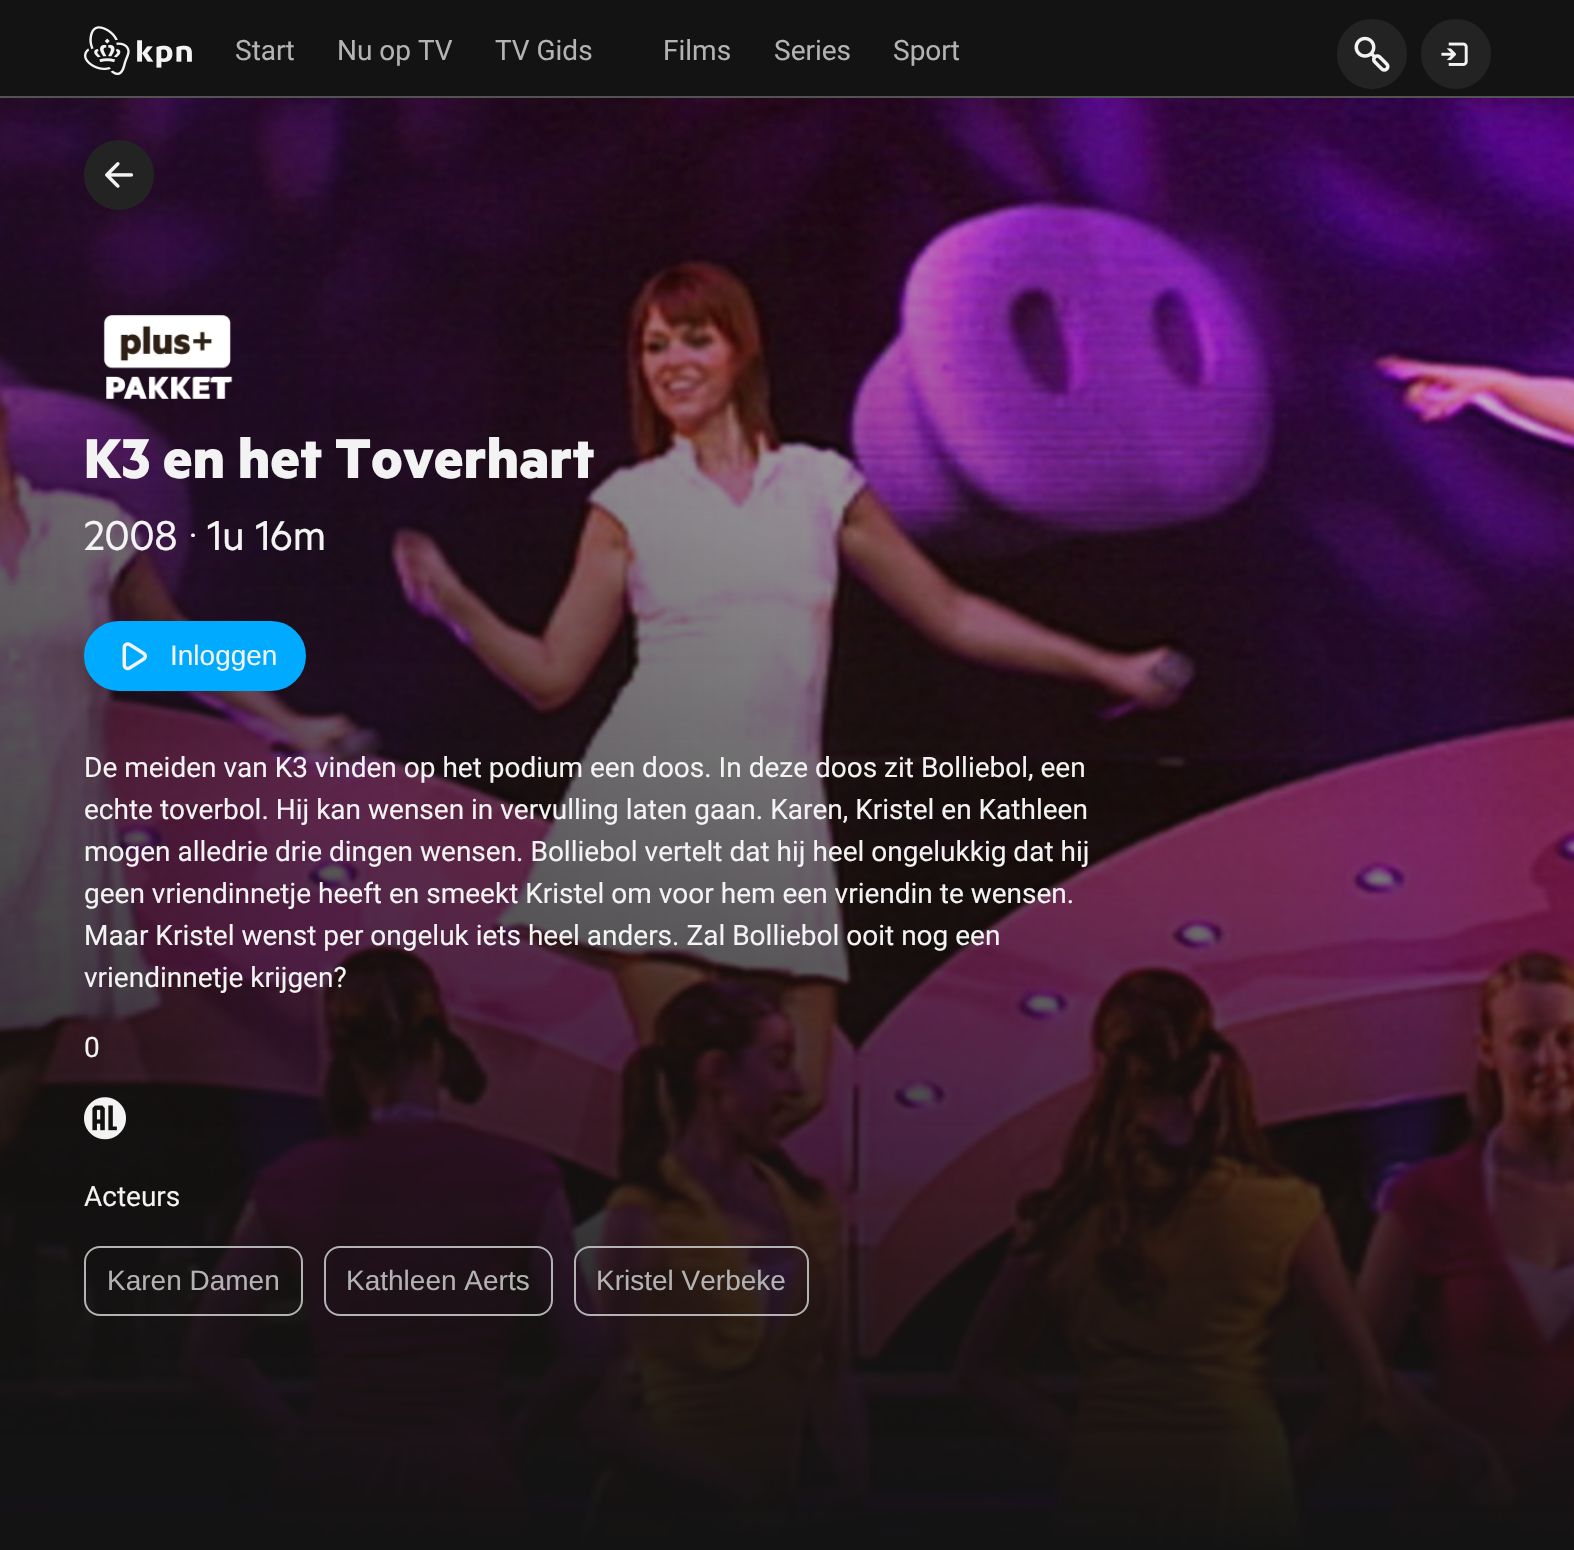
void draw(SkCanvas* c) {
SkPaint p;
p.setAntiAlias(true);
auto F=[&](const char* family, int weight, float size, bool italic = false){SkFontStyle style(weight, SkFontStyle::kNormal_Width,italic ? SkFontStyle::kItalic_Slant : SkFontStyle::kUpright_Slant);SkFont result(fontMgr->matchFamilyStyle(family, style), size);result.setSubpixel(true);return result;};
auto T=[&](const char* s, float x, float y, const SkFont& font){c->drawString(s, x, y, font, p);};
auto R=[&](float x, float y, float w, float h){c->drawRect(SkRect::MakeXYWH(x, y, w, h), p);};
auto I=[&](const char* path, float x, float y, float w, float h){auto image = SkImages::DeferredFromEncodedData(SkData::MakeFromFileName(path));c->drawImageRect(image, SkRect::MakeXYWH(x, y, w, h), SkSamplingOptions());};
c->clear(0xff131313);
p.setColor(0xff535353);
R(0,96,1574,2);
I("1.png",84,26,108,49);
auto f1 = F("Roboto",400,28);
p.setColor(0xffb3b3b3);
T("Start",235,60,f1);
T("Nu op TV",337,60,f1);
T("TV Gids",495,60,f1);
T("Films",663,60,f1);
T("Series",774,60,f1);
T("Sport",893,60,f1);
p.setColor(0xff232323);
c->drawCircle(1372,54,34,p);
p.setStroke(true);
p.setStrokeWidth(2);
c->drawCircle(1372,54,34,p);
I("2.png",1354,36,36,36);
p.setStroke(false);
c->drawCircle(1456,54,34,p);
p.setStroke(true);
c->drawCircle(1456,54,34,p);
I("3.png",1441,42,27,24);
I("4.png",0,98,1574,1452);
p.setStroke(false);
c->drawCircle(119,175,34,p);
p.setStroke(true);
c->drawCircle(119,175,34,p);
I("5.png",105,162,29,26);
I("6.png",103,315,130,84);
auto f2 = F("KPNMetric",700,63);
p.setStroke(false);
p.setColor(0xfff3f3f3);
T("K3 en het Toverhart",84,478,f2);
auto f3 = F("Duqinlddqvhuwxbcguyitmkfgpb",400,47);
T("2008",84,550,f3);
auto f4 = F("Roboto",300,47);
T("‧",189,550,f4);
T("1u 16m",207,550,f3);
p.setColor(0xff00aaff);
c->drawRoundRect(SkRect::MakeXYWH(85,622,220,68),34,34,p);
p.setStroke(true);
c->drawRoundRect(SkRect::MakeXYWH(85,622,220,68),34,34,p);
I("7.png",122,642,25,29);
auto f5 = F("Liberation Sans",400,28);
p.setStroke(false);
p.setColor(0xfff3f3f3);
T("Inloggen",170,665,f5);
T("De meiden van K3 vinden op het podium een doos. In deze doos zit Bolliebol, een",84,777,f1);
T("echte toverbol. Hij kan wensen in vervulling laten gaan. Karen, Kristel en Kathleen",84,819,f1);
T("mogen alledrie drie dingen wensen. Bolliebol vertelt dat hij heel ongelukkig dat hij",84,861,f1);
T("geen vriendinnetje heeft en smeekt Kristel om voor hem een vriendin te wensen.",84,903,f1);
T("Maar Kristel wenst per ongeluk iets heel anders. Zal Bolliebol ooit nog een",84,945,f1);
T("vriendinnetje krijgen?",84,987,f1);
T("0",84,1057,f1);
I("8.png",84,1097,42,43);
T("Acteurs",84,1206,f1);
p.setStroke(true);
p.setColor(0xffb3b3b3);
c->drawRoundRect(SkRect::MakeXYWH(85,1247,217,68),15,15,p);
p.setStroke(false);
T("Karen Damen",107,1290,f5);
p.setStroke(true);
c->drawRoundRect(SkRect::MakeXYWH(325,1247,227,68),15,15,p);
p.setStroke(false);
T("Kathleen Aerts",346,1290,f5);
p.setStroke(true);
c->drawRoundRect(SkRect::MakeXYWH(575,1247,233,68),15,15,p);
p.setStroke(false);
T("Kristel Verbeke",596,1290,f5);
}
